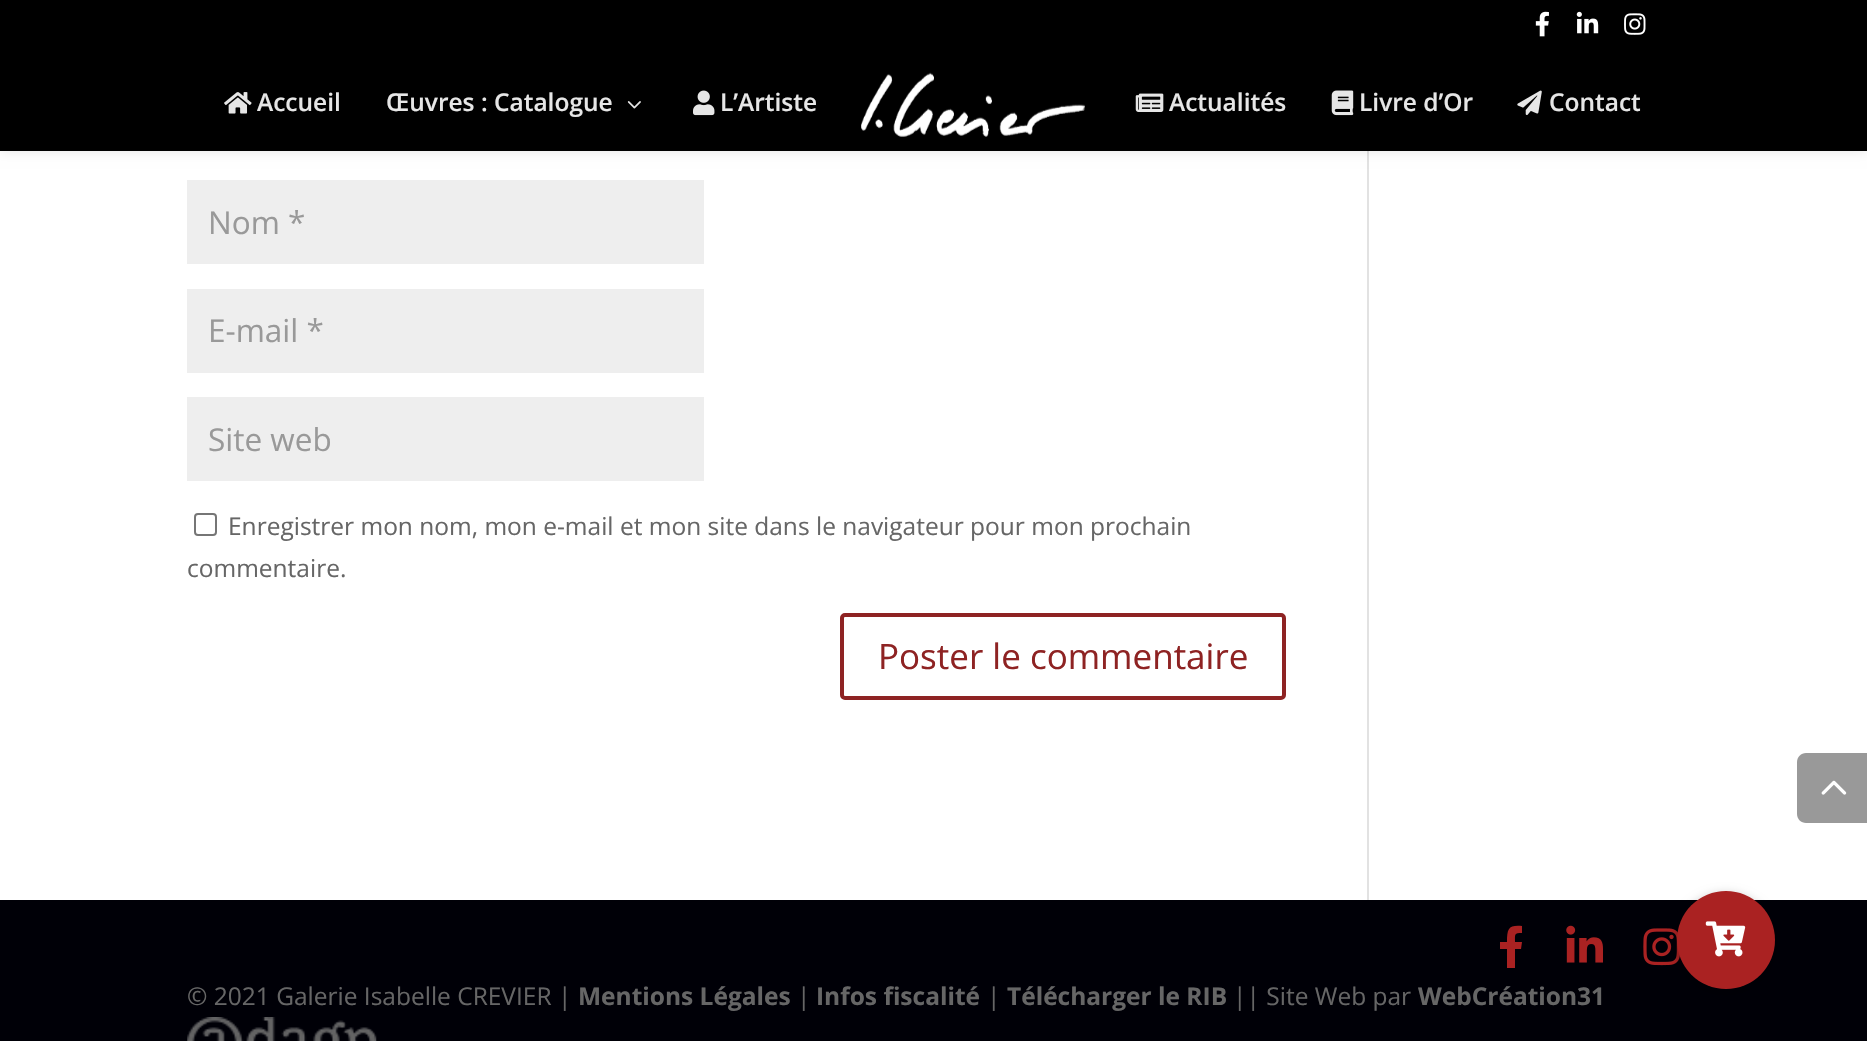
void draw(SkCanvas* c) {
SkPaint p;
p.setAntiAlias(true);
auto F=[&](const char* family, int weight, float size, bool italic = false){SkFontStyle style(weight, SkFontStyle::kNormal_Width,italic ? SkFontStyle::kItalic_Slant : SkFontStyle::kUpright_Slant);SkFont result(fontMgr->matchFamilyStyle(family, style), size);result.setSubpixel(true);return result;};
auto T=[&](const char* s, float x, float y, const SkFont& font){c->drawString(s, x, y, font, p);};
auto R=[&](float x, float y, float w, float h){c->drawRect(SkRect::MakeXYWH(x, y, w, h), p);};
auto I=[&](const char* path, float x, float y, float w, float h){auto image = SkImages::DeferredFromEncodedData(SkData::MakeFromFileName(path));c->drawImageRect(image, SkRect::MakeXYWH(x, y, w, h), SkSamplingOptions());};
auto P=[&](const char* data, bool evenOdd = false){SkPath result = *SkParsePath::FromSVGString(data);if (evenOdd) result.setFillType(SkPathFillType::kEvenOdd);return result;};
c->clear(0xffffffff);
p.setColor(0xffe2e2e2);
R(1367,151,2,749);
p.setColor(0x1a000000);
p.setMaskFilter(SkMaskFilter::MakeBlur(kNormal_SkBlurStyle, 6));
c->drawRect(SkRect::MakeXYWH(0,56,1867,95),p);
p.setMaskFilter(nullptr);
p.setColor(0xff000000);
R(0,0,1867,151);
I("1.png",1535,11,14,26);
I("2.png",1576,11,23,23);
I("3.png",1624,13,22,22);
I("4.png",224,92,28,22);
auto f1 = F("Open Sans",600,24.5);
p.setColor(0xffe6e6e6);
T("Accueil",257,111,f1);
T("Œuvres : Catalogue",386,111,f1);
I("5.png",627,101,14,8);
I("6.png",693,90,22,26);
T("L’Artiste",720,111,f1);
I("7.png",861,72,224,65);
I("8.png",1135,93,29,19);
T("Actualités",1169,111,f1);
I("9.png",1331,90,23,26);
T("Livre d’Or",1359,111,f1);
I("10.png",1517,90,25,25);
T("Contact",1549,111,f1);
p.setColor(0xffeeeeee);
R(187,180,517,84);
auto f2 = F("Open Sans",400,31.5);
p.setColor(0xff999999);
T("Nom *",208,234,f2);
p.setColor(0xffeeeeee);
R(187,289,517,84);
p.setColor(0xff999999);
T("E-mail *",208,342,f2);
p.setColor(0xffeeeeee);
R(187,397,517,84);
p.setColor(0xff999999);
T("Site web",208,451,f2);
p.setStroke(true);
p.setStrokeWidth(2);
p.setColor(0xff767676);
c->drawRoundRect(SkRect::MakeXYWH(195,514,21,21),3,3,p);
auto f3 = F("Open Sans",400,24.5);
p.setStroke(false);
p.setColor(0xff666666);
T("Enregistrer mon nom, mon e-mail et mon site dans le navigateur pour mon prochain",228,535,f3);
T("commentaire.",187,577,f3);
p.setStroke(true);
p.setStrokeWidth(4);
p.setColor(0xff8e2323);
c->drawRoundRect(SkRect::MakeXYWH(842,615,442,83),3,3,p);
auto f4 = F("Open Sans",400,35);
p.setStroke(false);
T("Poster le commentaire",878,669,f4);
p.setColor(0xff999999);
c->drawPath(P("M1806 753h61v70h-61c-5 0-9-4-9-9v-52c0-5 4-9 9-9z"),p);
I("11.png",1821,780,26,15);
p.setColor(0xff000007);
R(0,900,1867,141);
p.setColor(0xffaa2222);
c->drawPath(P("M1521 949h-6v19h-8v-19h-7v-7h7c0-14 2-17 15-16v7c-8 0-7 1-7 9h7z"),p);
I("12.png",1566,925,37,38);
I("13.png",1643,928,37,38);
p.setColor(0xff666666);
T("© 2021 Galerie Isabelle CREVIER |",187,1005,f3);
auto f5 = F("Open Sans",700,24.5);
T("Mentions Légales",578,1005,f5);
T("|",797,1005,f3);
T("Infos fiscalité",816,1005,f5);
T("|",987,1005,f3);
T("Télécharger le RIB",1007,1005,f5);
T("|| Site Web par",1233,1005,f3);
T("WebCréation31",1418,1005,f5);
I("14.png",187,1017,190,24);
p.setColor(0x33000000);
p.setMaskFilter(SkMaskFilter::MakeBlur(kNormal_SkBlurStyle, 5));
c->drawRoundRect(SkRect::MakeXYWH(1675,893,101,101),50.5,50.5,p);
p.setMaskFilter(nullptr);
p.setColor(0xffaa2222);
c->drawCircle(1726,940,49,p);
I("15.png",1705,921,41,36);
}
